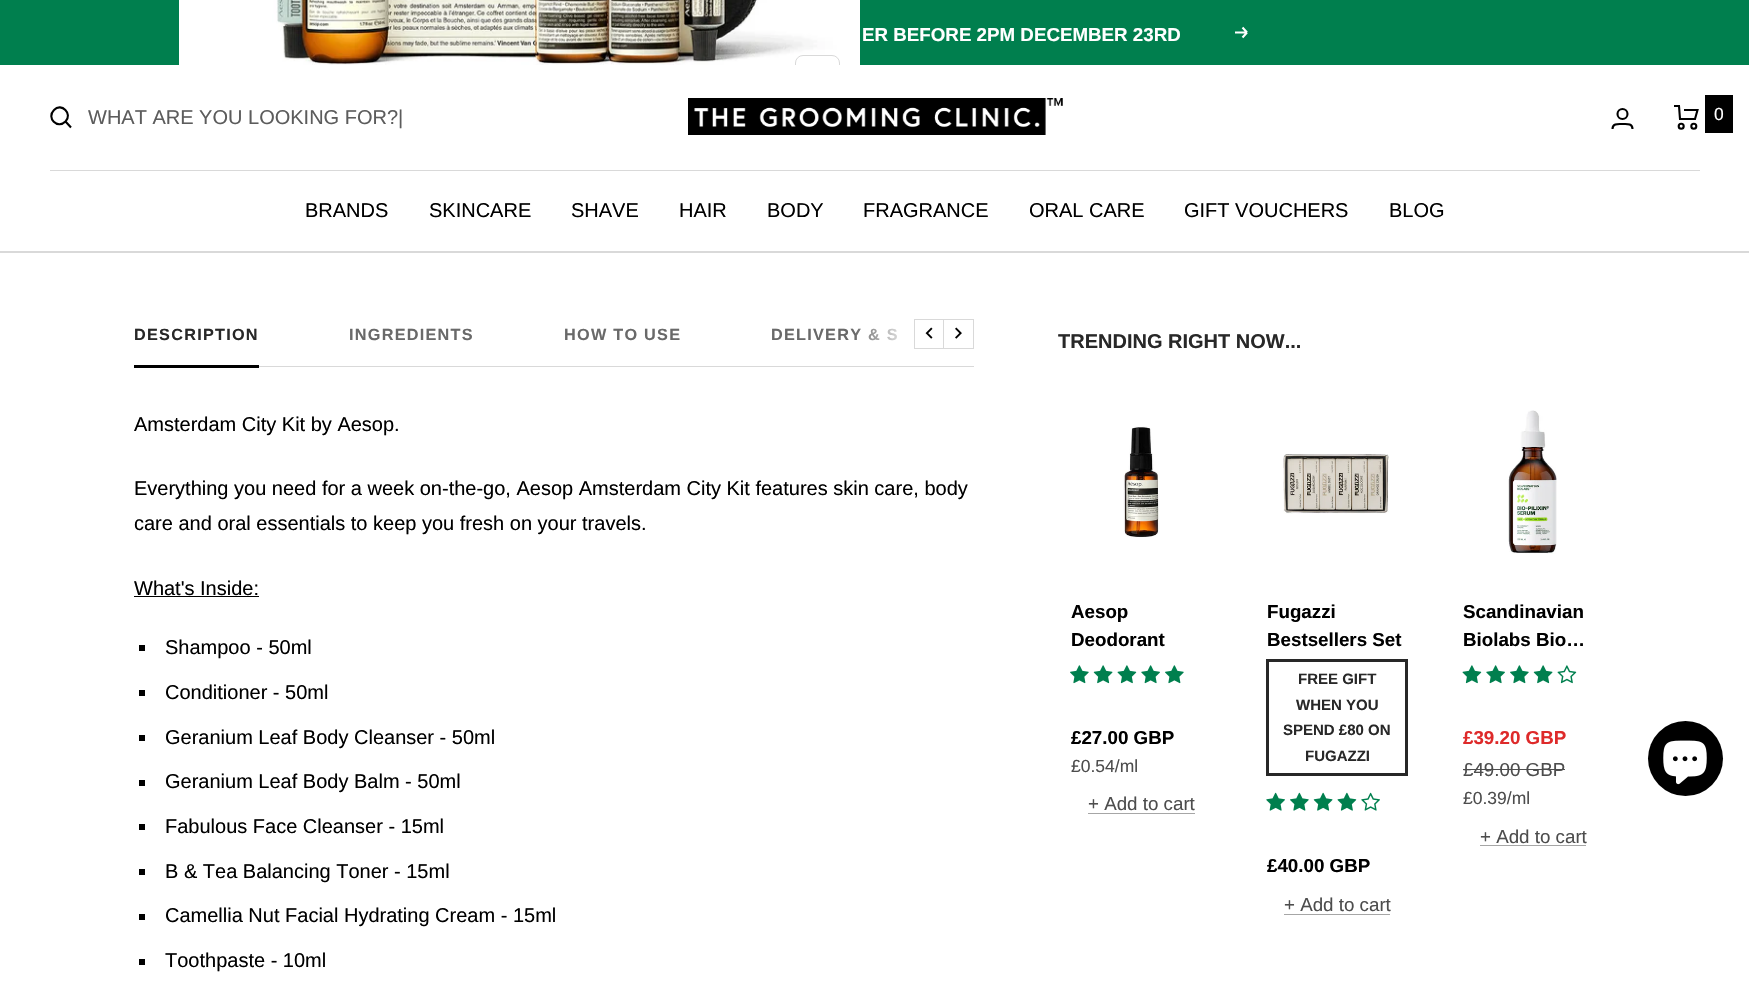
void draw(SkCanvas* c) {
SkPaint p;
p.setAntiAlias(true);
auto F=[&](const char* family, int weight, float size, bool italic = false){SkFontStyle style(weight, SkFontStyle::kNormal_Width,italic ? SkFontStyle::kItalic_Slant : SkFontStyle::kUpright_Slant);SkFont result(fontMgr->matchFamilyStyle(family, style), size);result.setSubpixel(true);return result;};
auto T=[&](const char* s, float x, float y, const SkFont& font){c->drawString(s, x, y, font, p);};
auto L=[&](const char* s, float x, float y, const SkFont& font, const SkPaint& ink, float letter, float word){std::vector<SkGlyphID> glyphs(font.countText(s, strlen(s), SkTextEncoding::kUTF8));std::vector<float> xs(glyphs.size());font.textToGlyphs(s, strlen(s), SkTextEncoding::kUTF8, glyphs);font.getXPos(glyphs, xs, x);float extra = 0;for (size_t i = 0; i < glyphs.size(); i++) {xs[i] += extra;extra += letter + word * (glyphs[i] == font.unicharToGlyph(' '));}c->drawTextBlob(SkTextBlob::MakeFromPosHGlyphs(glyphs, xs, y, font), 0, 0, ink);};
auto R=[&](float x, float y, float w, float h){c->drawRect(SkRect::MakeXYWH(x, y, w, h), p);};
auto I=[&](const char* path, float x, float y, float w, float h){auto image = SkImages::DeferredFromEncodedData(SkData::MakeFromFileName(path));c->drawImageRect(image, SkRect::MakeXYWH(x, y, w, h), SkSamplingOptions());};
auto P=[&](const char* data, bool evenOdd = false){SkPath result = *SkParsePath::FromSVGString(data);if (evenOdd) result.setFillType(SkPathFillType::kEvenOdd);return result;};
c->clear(0xffffffff);
p.setColor(0xff007f4e);
R(0,0,1749,65);
auto f1 = F("Liberation Sans",700,18.75);
p.setColor(0xffffffff);
T("ER BEFORE 2PM DECEMBER 23RD",862,41,f1);
p.setStroke(true);
p.setStrokeWidth(2.1);
c->drawPath(P("M1235 32.5h12m0 0l-4.5 5m4.5-5l-4.5-5"),p);
p.setStroke(false);
p.setColor(0xffd9d9d9);
R(0,251,1749,2);
I("2.png",179,0,681,65);
p.setStroke(true);
p.setStrokeWidth(1);
c->drawRoundRect(SkRect::MakeXYWH(795.5,55.5,44,44),7.5,7.5,p);
p.setStroke(false);
p.setColor(0xffffffff);
R(795,65,45,35);
p.setStroke(true);
p.setStrokeWidth(2.1);
p.setColor(0xff000000);
c->drawPath(P("M65.5 121.5c7.5-7.5-4-19.5-11.5-11.5c-8 8 3.5 19.5 11.5 11.5zm0 0l5.5 6"),p);
auto f2 = F("Liberation Sans",400,20);
p.setStroke(false);
p.setColor(0xff5c5c5c);
T("WHAT ARE YOU LOOKING FOR?|",88,124,f2);
I("1.png",688,98,375,37);
p.setStroke(true);
p.setColor(0xff000000);
c->drawCircle(1622.5,114,5,p);
c->drawPath(P("M1612.5 129c0-6 6-5 10-5c4 0 10-1 10 5"),p);
c->drawPath(P("M1674 106h5l1 13h15l2.5-9h-13.5"),p);
c->drawCircle(1681.2,126.2,2.5,p);
c->drawCircle(1693.8,126.2,2.5,p);
p.setStroke(false);
R(1705,95,28,38);
auto f3 = F("Liberation Sans",400,17.5);
p.setColor(0xffffffff);
T("0",1714,120,f3);
p.setColor(0xffd9d9d9);
R(50,170,1650,1);
p.setColor(0xff000000);
T("BRANDS",305,217,f2);
T("SKINCARE",429,217,f2);
T("SHAVE",571,217,f2);
T("HAIR",679,217,f2);
T("BODY",767,217,f2);
T("FRAGRANCE",863,217,f2);
T("ORAL CARE",1029,217,f2);
T("GIFT VOUCHERS",1184,217,f2);
T("BLOG",1389,217,f2);
p.setColor(0xffd9d9d9);
R(259,366,715,1);
auto f4 = F("Liberation Sans",700,16.25);
p.setColor(0xff282828);
L("DESCRIPTION",134,340,f4,p,1.25,0);
p.setColor(0xff696969);
L("INGREDIENTS",349,340,f4,p,1.25,0);
L("HOW TO USE",564,340,f4,p,1.25,0);
L("DELIVERY & S",771,340,f4,p,1.25,0);
p.setColor(0xff000000);
R(134,365,125,3);
{
const SkColor colors[] = {0xffffffff,0x00ffffff};
const float stops[] = {0,1};
const SkPoint ends[] = {{914,344}, {854,344}};
p.setShader(SkGradientShader::MakeLinear(ends, colors, stops, 2, SkTileMode::kClamp));
p.setAlpha(255);
}
R(855,328,42,13);
p.setStroke(true);
p.setStrokeWidth(1);
p.setShader(nullptr);
p.setColor(0xffd9d9d9);
c->drawRect(SkRect::MakeXYWH(914.5,319.5,29,29),p);
I("3.png",925,327,8,12);
p.setStroke(false);
R(944,319,30,1);
R(973,319,1,30);
R(944,348,30,1);
I("4.png",955,327,7,12);
p.setColor(0xff000000);
T("Amsterdam City Kit by Aesop.",134,431,f2);
T("Everything you need for a week on-the-go, Aesop Amsterdam City Kit features skin care, body",134,495,f2);
T("care and oral essentials to keep you fresh on your travels.",134,530,f2);
T("What's Inside:",134,595,f2);
R(134,596,125,1);
R(139,645,6,6);
T("Shampoo - 50ml",165,654,f2);
R(139,690,6,6);
T("Conditioner - 50ml",165,699,f2);
R(139,735,6,6);
T("Geranium Leaf Body Cleanser - 50ml",165,744,f2);
R(139,780,6,6);
T("Geranium Leaf Body Balm - 50ml",165,788,f2);
R(139,824,6,6);
T("Fabulous Face Cleanser - 15ml",165,833,f2);
R(139,869,6,6);
T("B & Tea Balancing Toner - 15ml",165,878,f2);
R(139,914,6,6);
T("Camellia Nut Facial Hydrating Cream - 15ml",165,922,f2);
R(139,959,6,6);
T("Toothpaste - 10ml",165,967,f2);
auto f5 = F("Liberation Sans",700,20);
p.setColor(0xff282828);
T("TRENDING RIGHT NOW...",1058,348,f5);
I("5.png",1123,426,37,112);
p.setColor(0xff000000);
T("Aesop",1071,618,f1);
T("Deodorant",1071,646,f1);
I("6.png",1070,665,19,19);
I("7.png",1093,665,20,19);
I("8.png",1117,665,20,19);
I("9.png",1141,665,19,19);
I("6.png",1165,665,19,19);
T("£27.00 GBP",1071,744,f1);
p.setColor(0xff4d4d4d);
T("£0.54/ml",1071,772,f3);
auto f6 = F("Liberation Sans",400,18.75);
T("+ Add to cart",1088,810,f6);
p.setColor(0xffa6a6a6);
R(1088,813,107,1);
I("10.png",1283,454,107,60);
p.setColor(0xff000000);
T("Fugazzi",1267,618,f1);
T("Bestsellers Set",1267,646,f1);
p.setStroke(true);
p.setStrokeWidth(3);
p.setColor(0xff282828);
c->drawRect(SkRect::MakeXYWH(1267.5,660.5,139,114),p);
auto f7 = F("Liberation Sans",700,15);
p.setStroke(false);
T("FREE GIFT",1298,684,f7);
T("WHEN YOU",1296,710,f7);
T("SPEND £80 ON",1283,735,f7);
T("FUGAZZI",1305,761,f7);
I("11.png",1266,792,19,19);
I("12.png",1290,792,19,19);
I("13.png",1313,792,20,19);
I("14.png",1337,792,20,19);
I("15.png",1361,792,19,19);
p.setColor(0xff000000);
T("£40.00 GBP",1267,872,f1);
p.setColor(0xff4d4d4d);
T("+ Add to cart",1284,911,f6);
p.setColor(0xffa6a6a6);
R(1284,914,106,1);
I("16.png",1508,410,49,144);
p.setColor(0xff000000);
T("Scandinavian",1463,618,f1);
T("Biolabs Bio…",1463,646,f1);
I("8.png",1462,665,20,19);
I("9.png",1486,665,19,19);
I("6.png",1510,665,19,19);
I("7.png",1533,665,20,19);
I("17.png",1557,665,20,19);
p.setColor(0xffde2a2a);
T("£39.20 GBP",1463,744,f1);
p.setColor(0xff4d4d4d);
T("£49.00 GBP",1463,776,f6);
R(1463,769,102,1);
T("£0.39/ml",1463,804,f3);
T("+ Add to cart",1480,843,f6);
p.setColor(0xffa6a6a6);
R(1480,845,106,1);
p.setColor(0xff000000);
c->drawCircle(1685.5,758.5,37.5,p);
I("18.png",1663,740,44,45);
}
